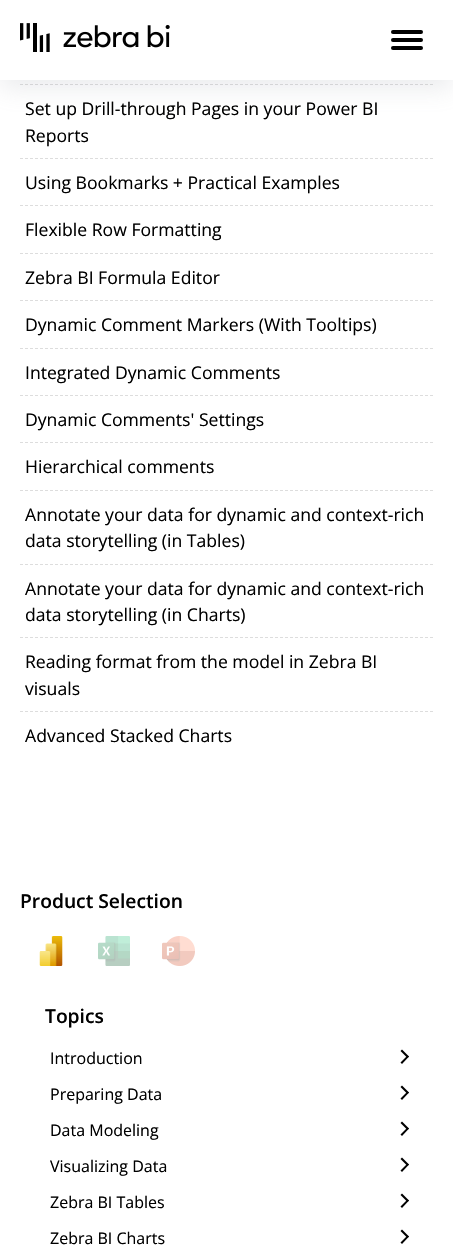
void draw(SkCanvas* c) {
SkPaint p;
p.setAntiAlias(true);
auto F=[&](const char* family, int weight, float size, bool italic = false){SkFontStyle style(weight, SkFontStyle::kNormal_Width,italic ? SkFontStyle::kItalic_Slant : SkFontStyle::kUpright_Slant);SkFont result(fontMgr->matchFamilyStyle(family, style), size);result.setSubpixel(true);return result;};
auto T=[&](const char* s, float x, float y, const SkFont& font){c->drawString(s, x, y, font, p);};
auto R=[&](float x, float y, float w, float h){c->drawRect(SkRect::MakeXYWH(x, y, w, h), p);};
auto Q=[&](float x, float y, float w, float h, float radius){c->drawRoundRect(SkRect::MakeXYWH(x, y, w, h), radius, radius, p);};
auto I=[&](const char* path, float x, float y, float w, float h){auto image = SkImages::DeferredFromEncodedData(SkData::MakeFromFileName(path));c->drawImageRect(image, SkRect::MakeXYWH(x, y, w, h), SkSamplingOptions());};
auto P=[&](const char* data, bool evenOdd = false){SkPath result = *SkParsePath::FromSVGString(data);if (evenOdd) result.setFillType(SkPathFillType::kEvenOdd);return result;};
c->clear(0xffffffff);
p.setStroke(true);
p.setStrokeWidth(1);
p.setColor(0xffdddddd);
p.setPathEffect(SkDashPathEffect::Make({{3,2}}, 0));
c->drawPath(P("M20 84.5h413"),p);
p.setPathEffect(nullptr);
p.setStroke(false);
p.setColor(0x33959da5);
p.setMaskFilter(SkMaskFilter::MakeBlur(kNormal_SkBlurStyle, 12));
c->drawRect(SkRect::MakeXYWH(0,8,453,80),p);
p.setMaskFilter(nullptr);
p.setColor(0xffffffff);
R(0,0,453,80);
I("1.png",20,23,150,29);
p.setColor(0xff000000);
Q(391,30,32,4,2);
Q(391,38,32,4,2);
Q(391,46,32,4,2);
p.setStroke(true);
p.setColor(0xffdddddd);
p.setPathEffect(SkDashPathEffect::Make({{3,2}}, 0));
c->drawPath(P("M20 158.5h413"),p);
p.setPathEffect(nullptr);
auto f1 = F("Open Sans",400,17.6);
p.setStroke(false);
p.setColor(0xff000000);
T("Set up Drill-through Pages in your Power BI",25,115,f1);
T("Reports",25,142,f1);
p.setStroke(true);
p.setColor(0xffdddddd);
p.setPathEffect(SkDashPathEffect::Make({{3,2}}, 0));
c->drawPath(P("M20 205.5h413"),p);
p.setPathEffect(nullptr);
p.setStroke(false);
p.setColor(0xff000000);
T("Using Bookmarks + Practical Examples",25,189,f1);
p.setStroke(true);
p.setColor(0xffdddddd);
p.setPathEffect(SkDashPathEffect::Make({{3,2}}, 0));
c->drawPath(P("M20 253.5h413"),p);
p.setPathEffect(nullptr);
p.setStroke(false);
p.setColor(0xff000000);
T("Flexible Row Formatting",25,236,f1);
p.setStroke(true);
p.setColor(0xffdddddd);
p.setPathEffect(SkDashPathEffect::Make({{3,2}}, 0));
c->drawPath(P("M20 300.5h413"),p);
p.setPathEffect(nullptr);
p.setStroke(false);
p.setColor(0xff000000);
T("Zebra BI Formula Editor",25,284,f1);
p.setStroke(true);
p.setColor(0xffdddddd);
p.setPathEffect(SkDashPathEffect::Make({{3,2}}, 0));
c->drawPath(P("M20 348.5h413"),p);
p.setPathEffect(nullptr);
p.setStroke(false);
p.setColor(0xff000000);
T("Dynamic Comment Markers (With Tooltips)",25,331,f1);
p.setStroke(true);
p.setColor(0xffdddddd);
p.setPathEffect(SkDashPathEffect::Make({{3,2}}, 0));
c->drawPath(P("M20 395.5h413"),p);
p.setPathEffect(nullptr);
p.setStroke(false);
p.setColor(0xff000000);
T("Integrated Dynamic Comments",25,379,f1);
p.setStroke(true);
p.setColor(0xffdddddd);
p.setPathEffect(SkDashPathEffect::Make({{3,2}}, 0));
c->drawPath(P("M20 442.5h413"),p);
p.setPathEffect(nullptr);
p.setStroke(false);
p.setColor(0xff000000);
T("Dynamic Comments' Settings",25,426,f1);
p.setStroke(true);
p.setColor(0xffdddddd);
p.setPathEffect(SkDashPathEffect::Make({{3,2}}, 0));
c->drawPath(P("M20 490.5h413"),p);
p.setPathEffect(nullptr);
p.setStroke(false);
p.setColor(0xff000000);
T("Hierarchical comments",25,473,f1);
p.setStroke(true);
p.setColor(0xffdddddd);
p.setPathEffect(SkDashPathEffect::Make({{3,2}}, 0));
c->drawPath(P("M20 564.5h413"),p);
p.setPathEffect(nullptr);
p.setStroke(false);
p.setColor(0xff000000);
T("Annotate your data for dynamic and context-rich",25,521,f1);
T("data storytelling (in Tables)",25,547,f1);
p.setStroke(true);
p.setColor(0xffdddddd);
p.setPathEffect(SkDashPathEffect::Make({{3,2}}, 0));
c->drawPath(P("M20 637.5h413"),p);
p.setPathEffect(nullptr);
p.setStroke(false);
p.setColor(0xff000000);
T("Annotate your data for dynamic and context-rich",25,595,f1);
T("data storytelling (in Charts)",25,621,f1);
p.setStroke(true);
p.setColor(0xffdddddd);
p.setPathEffect(SkDashPathEffect::Make({{3,2}}, 0));
c->drawPath(P("M20 711.5h413"),p);
p.setPathEffect(nullptr);
p.setStroke(false);
p.setColor(0xff000000);
T("Reading format from the model in Zebra BI",25,668,f1);
T("visuals",25,695,f1);
T("Advanced Stacked Charts",25,742,f1);
auto f2 = F("Open Sans",600,19.25);
T("Product Selection",20,908,f2);
I("2.png",39,936,24,30);
I("3.png",98,936,32,30);
I("4.png",162,936,33,30);
T("Topics",45,1023,f2);
auto f3 = F("Open Sans",400,16);
T("Introduction",50,1064,f3);
c->drawPath(P("M402 1049.5l7 7l-1.5 1.5l-7-7z"),p);
c->drawPath(P("M407.5 1055.5l1.5 1l-7 7.5l-1.5-1.5z"),p);
T("Preparing Data",50,1100,f3);
c->drawPath(P("M402 1085.5l7 7l-1.5 1.5l-7-7z"),p);
c->drawPath(P("M407.5 1091.5l1.5 1l-7 7.5l-1.5-1.5z"),p);
T("Data Modeling",50,1136,f3);
c->drawPath(P("M402 1121.5l7 7l-1.5 1.5l-7-7z"),p);
c->drawPath(P("M407.5 1127.5l1.5 1l-7 7.5l-1.5-1.5z"),p);
T("Visualizing Data",50,1172,f3);
c->drawPath(P("M402 1157.5l7 7l-1.5 1.5l-7-7z"),p);
c->drawPath(P("M407.5 1163.5l1.5 1l-7 7.5l-1.5-1.5z"),p);
T("Zebra BI Tables",50,1208,f3);
c->drawPath(P("M402 1193.5l7 7l-1.5 1.5l-7-7z"),p);
c->drawPath(P("M407.5 1199.5l1.5 1l-7 7.5l-1.5-1.5z"),p);
T("Zebra BI Charts",50,1244,f3);
c->drawPath(P("M402 1229.5l7 7l-1.5 1.5l-7-7z"),p);
c->drawPath(P("M407.5 1235.5l1.5 1l-7 7.5l-1.5-1.5z"),p);
}
